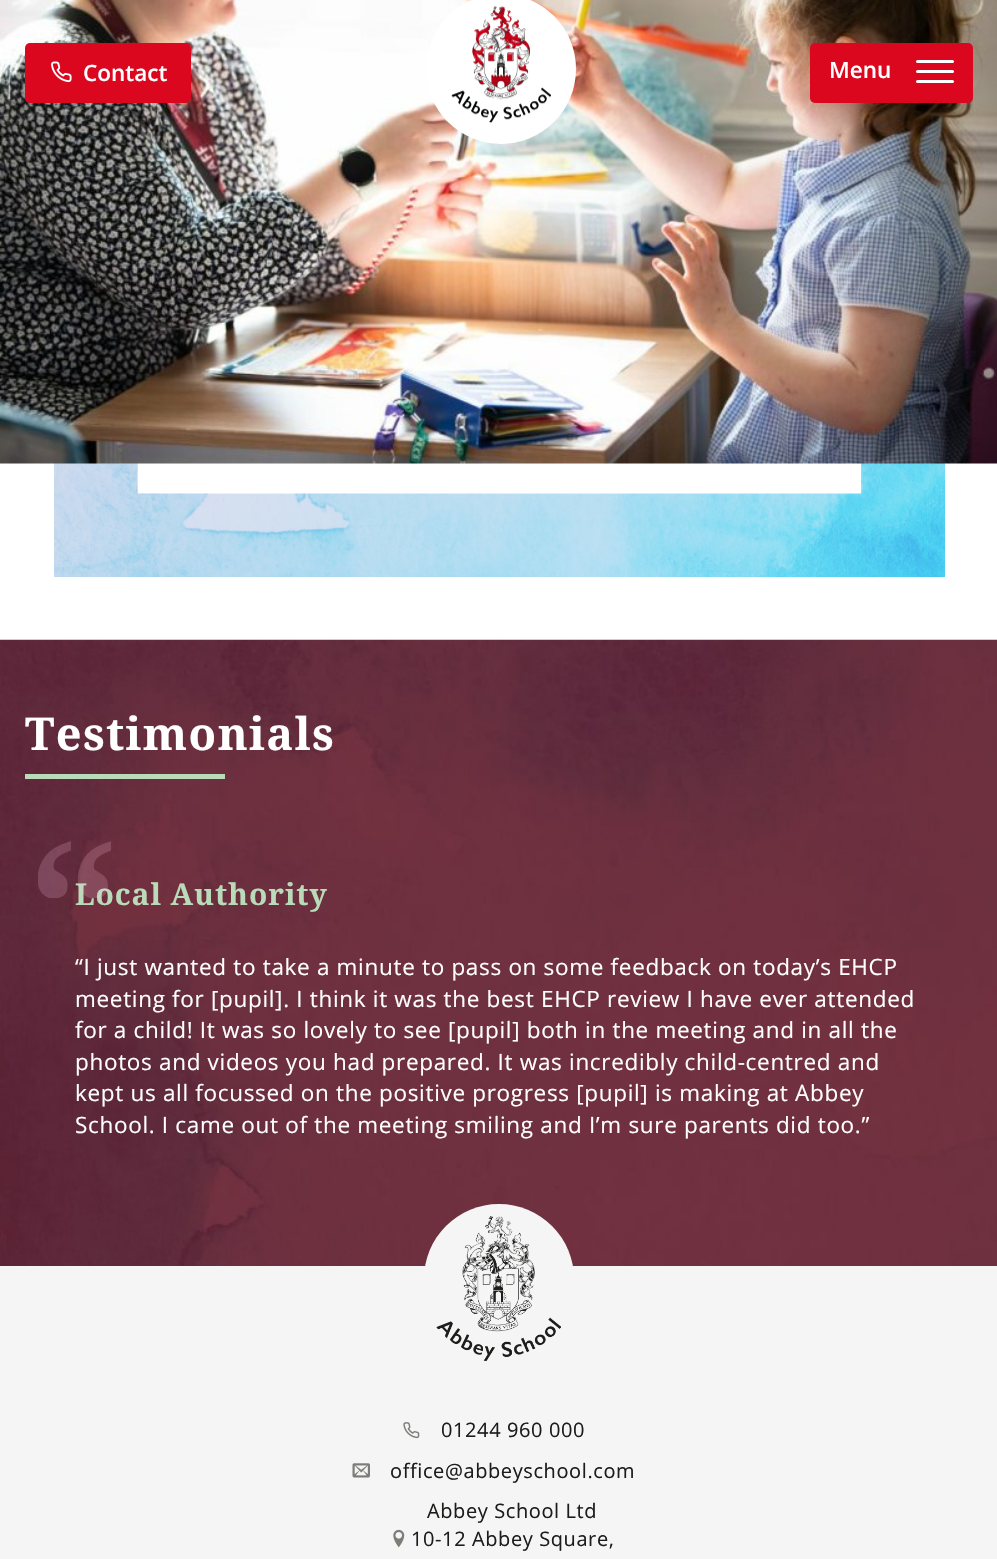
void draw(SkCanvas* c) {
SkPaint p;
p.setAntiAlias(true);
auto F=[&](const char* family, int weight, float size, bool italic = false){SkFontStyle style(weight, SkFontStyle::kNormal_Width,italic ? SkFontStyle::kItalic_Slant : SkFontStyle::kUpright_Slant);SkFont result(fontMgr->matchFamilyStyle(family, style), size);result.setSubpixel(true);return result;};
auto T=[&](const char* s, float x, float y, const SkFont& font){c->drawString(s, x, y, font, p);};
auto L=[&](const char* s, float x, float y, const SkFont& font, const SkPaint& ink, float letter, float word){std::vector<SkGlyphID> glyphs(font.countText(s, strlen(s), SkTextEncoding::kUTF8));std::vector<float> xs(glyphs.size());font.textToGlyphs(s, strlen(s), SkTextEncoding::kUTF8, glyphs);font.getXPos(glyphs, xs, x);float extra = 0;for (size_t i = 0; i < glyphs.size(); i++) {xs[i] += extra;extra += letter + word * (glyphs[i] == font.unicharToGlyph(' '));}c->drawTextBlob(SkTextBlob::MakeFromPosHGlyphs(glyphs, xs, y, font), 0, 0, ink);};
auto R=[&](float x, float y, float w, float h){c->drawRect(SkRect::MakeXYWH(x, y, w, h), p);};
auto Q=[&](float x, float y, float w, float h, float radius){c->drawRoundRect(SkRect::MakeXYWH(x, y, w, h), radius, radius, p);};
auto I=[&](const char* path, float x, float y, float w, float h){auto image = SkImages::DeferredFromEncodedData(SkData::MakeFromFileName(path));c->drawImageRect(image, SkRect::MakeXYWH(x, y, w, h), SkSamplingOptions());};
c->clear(0xffffffff);
I("2.png",54,463,891,114);
I("1.png",0,0,997,464);
p.setColor(0xffda071f);
Q(25,43,166,60,5);
I("3.png",51,61,21,22);
auto f1 = F("Open Sans",600,22.5);
p.setColor(0xffffffff);
T("Contact",83,81,f1);
c->drawCircle(501,69,75,p);
I("4.png",451,6,100,117);
p.setColor(0xffda071f);
Q(810,43,163,60,5);
p.setColor(0xffffffff);
T("Menu",829,78,f1);
Q(916,70,38,3,1.5);
Q(916,60,38,3,1.5);
Q(916,80,38,3,1.5);
I("5.png",0,639,997,627);
auto f2 = F("Noto Serif",700,45);
L("Testimonials",25,750,f2,p,1.4,0);
p.setColor(0xffb9dbb9);
R(25,774,200,5);
auto f3 = F("Noto Serif",700,30);
L("Local Authority",75,905,f3,p,.9,0);
I("6.png",38,841,73,57);
auto f4 = F("Open Sans",400,22.5);
p.setColor(0xffffffff);
L("“I just wanted to take a minute to pass on some feedback on today’s EHCP",75,975,f4,p,.68,0);
L("meeting for [pupil]. I think it was the best EHCP review I have ever attended",75,1007,f4,p,.68,0);
L("for a child! It was so lovely to see [pupil] both in the meeting and in all the",75,1038,f4,p,.68,0);
L("photos and videos you had prepared. It was incredibly child-centred and",75,1070,f4,p,.68,0);
L("kept us all focussed on the positive progress [pupil] is making at Abbey",75,1101,f4,p,.68,0);
L("School. I came out of the meeting smiling and I’m sure parents did too.”",75,1133,f4,p,.68,0);
p.setColor(0xfff5f5f5);
R(0,1266,997,293);
c->drawCircle(499,1279,75,p);
I("7.png",436,1216,125,145);
I("8.png",403,1422,17,17);
auto f5 = F("Open Sans",400,20);
p.setColor(0xff1c1c1b);
L("01244 960 000",441,1437,f5,p,.6,0);
I("9.png",352,1463,18,15);
L("office@abbeyschool.com",390,1478,f5,p,.6,0);
L("Abbey School Ltd",427,1518,f5,p,.6,0);
I("10.png",393,1529,12,19);
L("10-12 Abbey Square,",411,1546,f5,p,.6,0);
}
